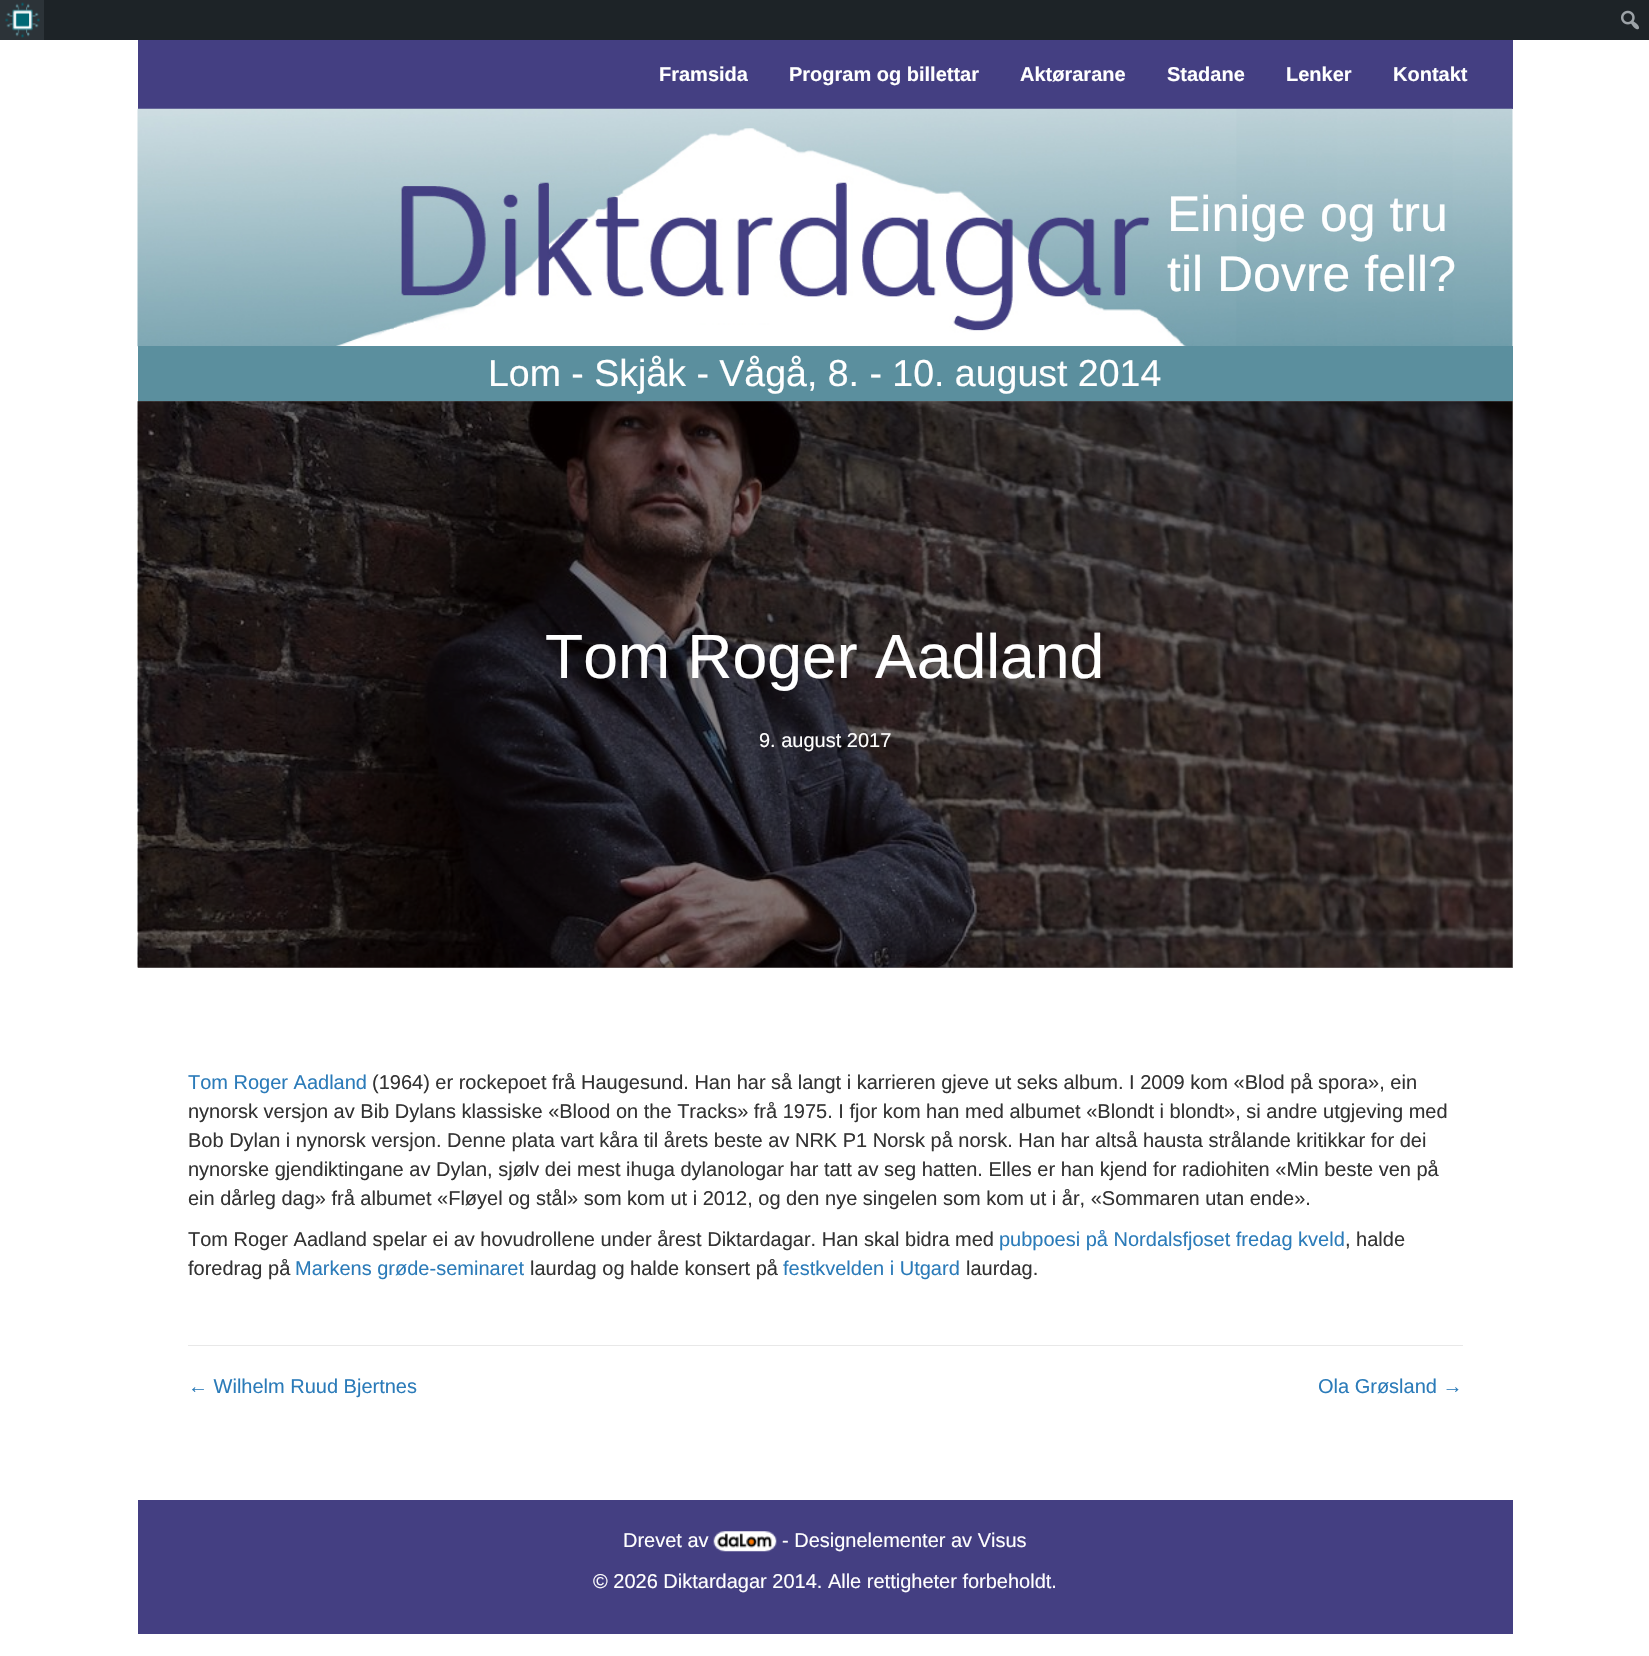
void draw(SkCanvas* c) {
SkPaint p;
p.setAntiAlias(true);
auto F=[&](const char* family, int weight, float size, bool italic = false){SkFontStyle style(weight, SkFontStyle::kNormal_Width,italic ? SkFontStyle::kItalic_Slant : SkFontStyle::kUpright_Slant);SkFont result(fontMgr->matchFamilyStyle(family, style), size);result.setSubpixel(true);return result;};
auto T=[&](const char* s, float x, float y, const SkFont& font){c->drawString(s, x, y, font, p);};
auto R=[&](float x, float y, float w, float h){c->drawRect(SkRect::MakeXYWH(x, y, w, h), p);};
auto I=[&](const char* path, float x, float y, float w, float h){auto image = SkImages::DeferredFromEncodedData(SkData::MakeFromFileName(path));c->drawImageRect(image, SkRect::MakeXYWH(x, y, w, h), SkSamplingOptions());};
c->clear(0xffffffff);
p.setColor(0xff858080);
R(138,401,1375,567);
p.setColor(0xff1d2327);
R(44,0,1605,40);
p.setColor(0xff2c3338);
R(0,0,44,40);
I("1.png",5,2,35,36);
I("2.png",1621,10,18,20);
p.setColor(0xff443f82);
R(138,40,1375,69);
auto f1 = F("Liberation Sans",700,20);
p.setColor(0xffffffff);
T("Framsida",659,81,f1);
T("Program og billettar",789,81,f1);
T("Aktørarane",1020,81,f1);
T("Stadane",1167,81,f1);
T("Lenker",1286,81,f1);
T("Kontakt",1393,81,f1);
I("3.png",137,108,1376,239);
auto f2 = F("Liberation Sans",400,50);
T("Einige og tru",1167,231,f2);
T("til Dovre fell?",1167,291,f2);
p.setColor(0xff5b8f9e);
R(138,346,1375,55);
auto f3 = F("Liberation Sans",400,37.5);
p.setColor(0xffffffff);
T("Lom - Skjåk - Vågå, 8. - 10. august 2014",488,386,f3);
I("4.png",137,401,1376,567);
auto f4 = F("Liberation Sans",400,62.5);
T("Tom Roger Aadland",545,678,f4);
auto f5 = F("Liberation Sans",400,20);
T("9. august 2017",759,747,f5);
p.setColor(0xff2b7bb9);
T("Tom Roger Aadland",188,1089,f5);
p.setColor(0xff333333);
T("(1964) er rockepoet frå Haugesund. Han har så langt i karrieren gjeve ut seks album. I 2009 kom «Blod på spora», ein",372,1089,f5);
T("nynorsk versjon av Bib Dylans klassiske «Blood on the Tracks» frå 1975. I fjor kom han med albumet «Blondt i blondt», si andre utgjeving med",188,1118,f5);
T("Bob Dylan i nynorsk versjon. Denne plata vart kåra til årets beste av NRK P1 Norsk på norsk. Han har altså hausta strålande kritikkar for dei",188,1147,f5);
T("nynorske gjendiktingane av Dylan, sjølv dei mest ihuga dylanologar har tatt av seg hatten. Elles er han kjend for radiohiten «Min beste ven på",188,1176,f5);
T("ein dårleg dag» frå albumet «Fløyel og stål» som kom ut i 2012, og den nye singelen som kom ut i år, «Sommaren utan ende».",188,1205,f5);
T("Tom Roger Aadland spelar ei av hovudrollene under årest Diktardagar. Han skal bidra med",188,1246,f5);
p.setColor(0xff2b7bb9);
T("pubpoesi på Nordalsfjoset fredag kveld",999,1246,f5);
p.setColor(0xff333333);
T(", halde",1345,1246,f5);
T("foredrag på",188,1275,f5);
p.setColor(0xff2b7bb9);
T("Markens grøde-seminaret",295,1275,f5);
p.setColor(0xff333333);
T("laurdag og halde konsert på",530,1275,f5);
p.setColor(0xff2b7bb9);
T("festkvelden i Utgard",783,1275,f5);
p.setColor(0xff333333);
T("laurdag.",966,1275,f5);
p.setColor(0xffe8e8e8);
R(188,1345,1275,1);
p.setColor(0xff2b7bb9);
T("← Wilhelm Ruud Bjertnes",188,1393,f5);
T("Ola Grøsland →",1318,1393,f5);
p.setColor(0xff443f82);
R(138,1500,1375,134);
p.setColor(0xffffffff);
T("Drevet av",623,1547,f5);
I("5.png",713,1531,64,21);
T("- Designelementer av Visus",782,1547,f5);
T("© 2026 Diktardagar 2014. Alle rettigheter forbeholdt.",593,1588,f5);
}
